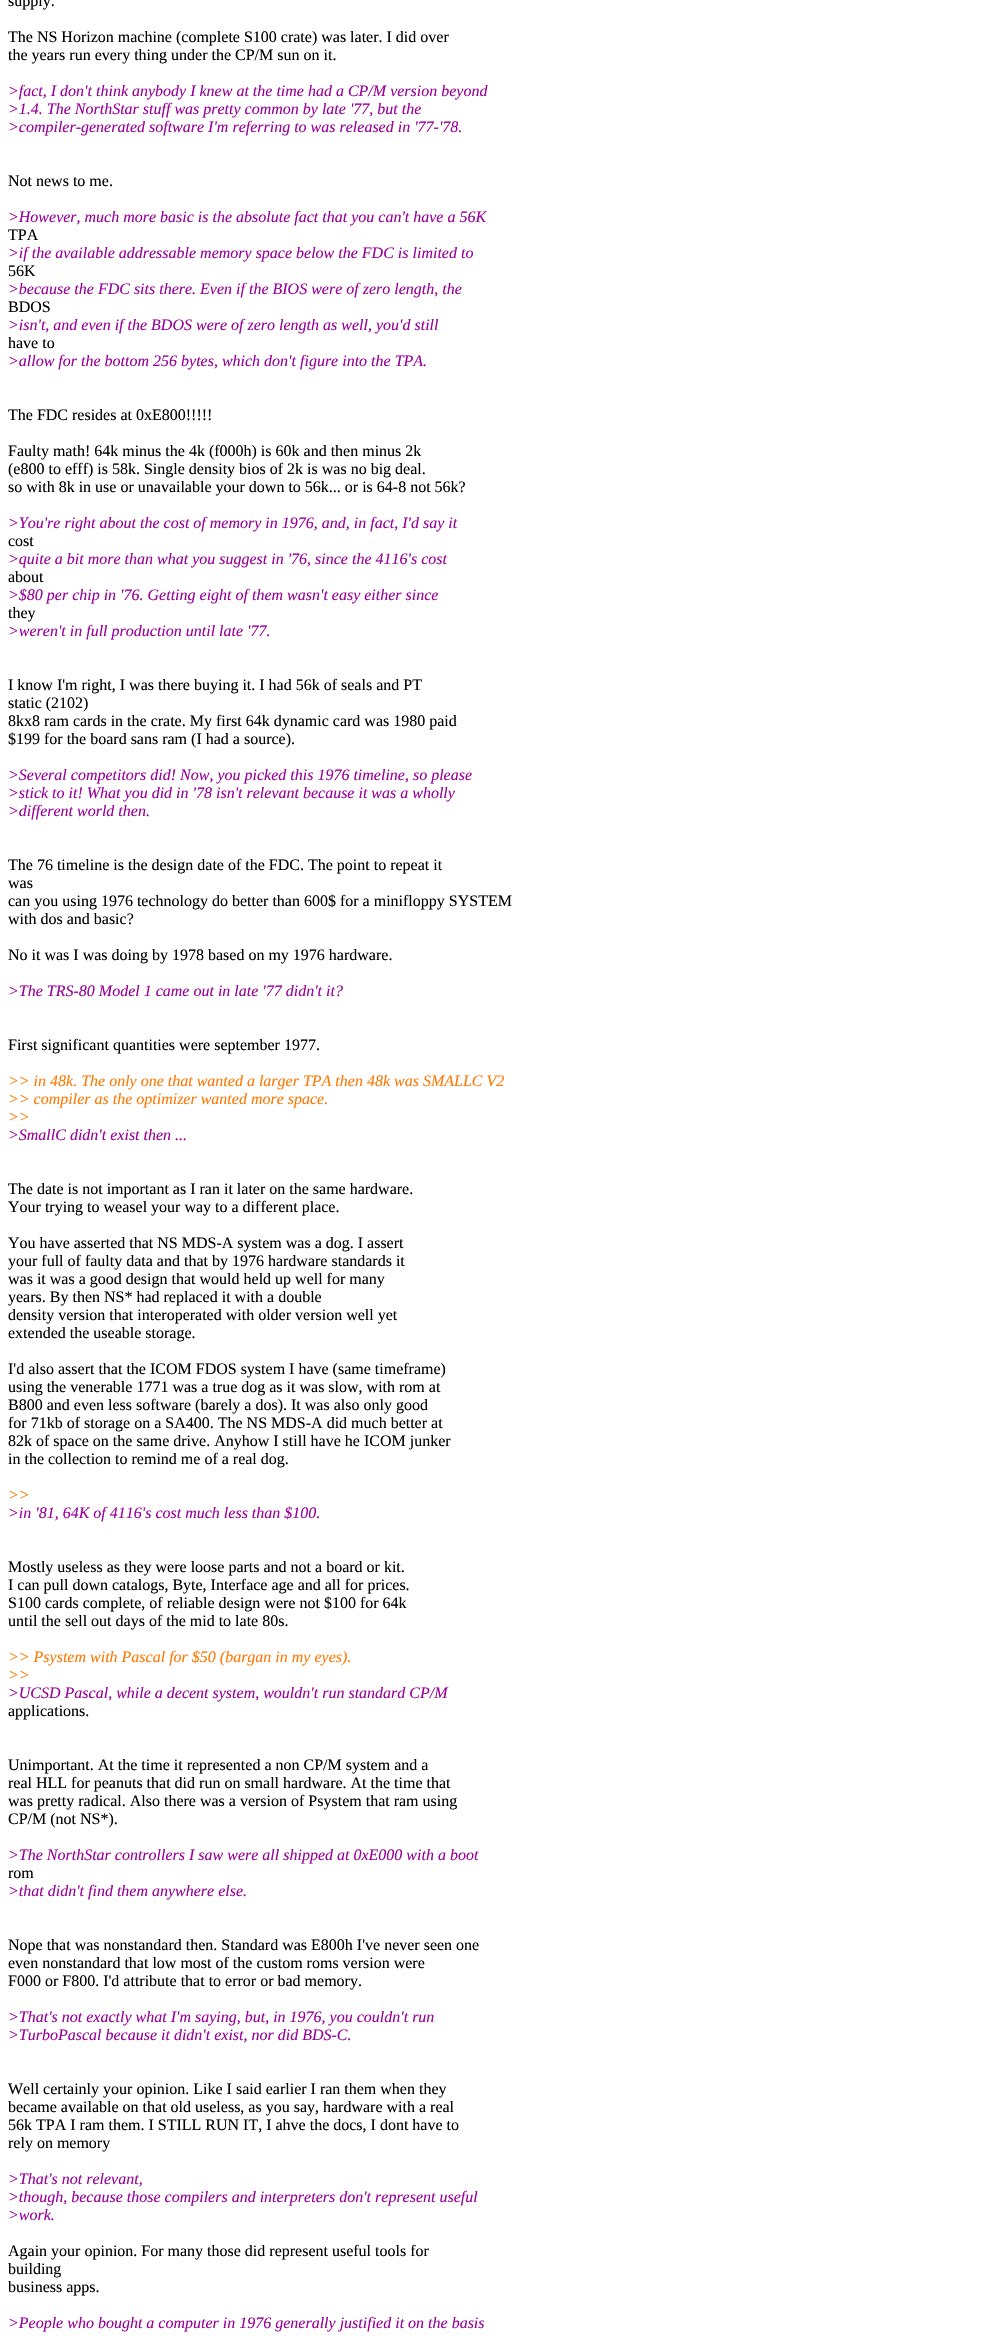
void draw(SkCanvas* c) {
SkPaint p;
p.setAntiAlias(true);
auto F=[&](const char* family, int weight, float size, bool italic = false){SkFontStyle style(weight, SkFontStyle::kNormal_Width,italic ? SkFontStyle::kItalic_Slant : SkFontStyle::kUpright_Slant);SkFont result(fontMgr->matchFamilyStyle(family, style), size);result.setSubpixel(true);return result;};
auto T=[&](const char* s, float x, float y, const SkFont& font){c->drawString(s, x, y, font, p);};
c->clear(0xffffffff);
auto f1 = F("Liberation Serif",400,16);
p.setColor(0xff000000);
T("supply.",8,6,f1);
T("The NS Horizon machine (complete S100 crate) was later. I did over",8,42,f1);
T("the years run every thing under the CP/M sun on it.",8,60,f1);
auto f2 = F("Liberation Serif",400,16,true);
p.setColor(0xff990099);
T(">fact, I don't think anybody I knew at the time had a CP/M version beyond",8,96,f2);
T(">1.4. The NorthStar stuff was pretty common by late '77, but the",8,114,f2);
T(">compiler-generated software I'm referring to was released in '77-'78.",8,132,f2);
p.setColor(0xff000000);
T("Not news to me.",8,186,f1);
p.setColor(0xff990099);
T(">However, much more basic is the absolute fact that you can't have a 56K",8,222,f2);
p.setColor(0xff000000);
T("TPA",8,240,f1);
p.setColor(0xff990099);
T(">if the available addressable memory space below the FDC is limited to",8,258,f2);
p.setColor(0xff000000);
T("56K",8,276,f1);
p.setColor(0xff990099);
T(">because the FDC sits there. Even if the BIOS were of zero length, the",8,294,f2);
p.setColor(0xff000000);
T("BDOS",8,312,f1);
p.setColor(0xff990099);
T(">isn't, and even if the BDOS were of zero length as well, you'd still",8,330,f2);
p.setColor(0xff000000);
T("have to",8,348,f1);
p.setColor(0xff990099);
T(">allow for the bottom 256 bytes, which don't figure into the TPA.",8,366,f2);
p.setColor(0xff000000);
T("The FDC resides at 0xE800!!!!!",8,420,f1);
T("Faulty math! 64k minus the 4k (f000h) is 60k and then minus 2k",8,456,f1);
T("(e800 to efff) is 58k. Single density bios of 2k is was no big deal.",8,474,f1);
T("so with 8k in use or unavailable your down to 56k... or is 64-8 not 56k?",8,492,f1);
p.setColor(0xff990099);
T(">You're right about the cost of memory in 1976, and, in fact, I'd say it",8,528,f2);
p.setColor(0xff000000);
T("cost",8,546,f1);
p.setColor(0xff990099);
T(">quite a bit more than what you suggest in '76, since the 4116's cost",8,564,f2);
p.setColor(0xff000000);
T("about",8,582,f1);
p.setColor(0xff990099);
T(">$80 per chip in '76. Getting eight of them wasn't easy either since",8,600,f2);
p.setColor(0xff000000);
T("they",8,618,f1);
p.setColor(0xff990099);
T(">weren't in full production until late '77.",8,636,f2);
p.setColor(0xff000000);
T("I know I'm right, I was there buying it. I had 56k of seals and PT",8,690,f1);
T("static (2102)",8,708,f1);
T("8kx8 ram cards in the crate. My first 64k dynamic card was 1980 paid",8,726,f1);
T("$199 for the board sans ram (I had a source).",8,744,f1);
p.setColor(0xff990099);
T(">Several competitors did! Now, you picked this 1976 timeline, so please",8,780,f2);
T(">stick to it! What you did in '78 isn't relevant because it was a wholly",8,798,f2);
T(">different world then.",8,816,f2);
p.setColor(0xff000000);
T("The 76 timeline is the design date of the FDC. The point to repeat it",8,870,f1);
T("was",8,888,f1);
T("can you using 1976 technology do better than 600$ for a minifloppy SYSTEM",8,906,f1);
T("with dos and basic?",8,924,f1);
T("No it was I was doing by 1978 based on my 1976 hardware.",8,960,f1);
p.setColor(0xff990099);
T(">The TRS-80 Model 1 came out in late '77 didn't it?",8,996,f2);
p.setColor(0xff000000);
T("First significant quantities were september 1977.",8,1050,f1);
p.setColor(0xffff7700);
T(">> in 48k. The only one that wanted a larger TPA then 48k was SMALLC V2",8,1086,f2);
T(">> compiler as the optimizer wanted more space.",8,1104,f2);
T(">>",8,1122,f2);
p.setColor(0xff990099);
T(">SmallC didn't exist then ...",8,1140,f2);
p.setColor(0xff000000);
T("The date is not important as I ran it later on the same hardware.",8,1194,f1);
T("Your trying to weasel your way to a different place.",8,1212,f1);
T("You have asserted that NS MDS-A system was a dog. I assert",8,1248,f1);
T("your full of faulty data and that by 1976 hardware standards it",8,1266,f1);
T("was it was a good design that would held up well for many",8,1284,f1);
T("years. By then NS* had replaced it with a double",8,1302,f1);
T("density version that interoperated with older version well yet",8,1320,f1);
T("extended the useable storage.",8,1338,f1);
T("I'd also assert that the ICOM FDOS system I have (same timeframe)",8,1374,f1);
T("using the venerable 1771 was a true dog as it was slow, with rom at",8,1392,f1);
T("B800 and even less software (barely a dos). It was also only good",8,1410,f1);
T("for 71kb of storage on a SA400. The NS MDS-A did much better at",8,1428,f1);
T("82k of space on the same drive. Anyhow I still have he ICOM junker",8,1446,f1);
T("in the collection to remind me of a real dog.",8,1464,f1);
p.setColor(0xffff7700);
T(">>",8,1500,f2);
p.setColor(0xff990099);
T(">in '81, 64K of 4116's cost much less than $100.",8,1518,f2);
p.setColor(0xff000000);
T("Mostly useless as they were loose parts and not a board or kit.",8,1572,f1);
T("I can pull down catalogs, Byte, Interface age and all for prices.",8,1590,f1);
T("S100 cards complete, of reliable design were not $100 for 64k",8,1608,f1);
T("until the sell out days of the mid to late 80s.",8,1626,f1);
p.setColor(0xffff7700);
T(">> Psystem with Pascal for $50 (bargan in my eyes).",8,1662,f2);
T(">>",8,1680,f2);
p.setColor(0xff990099);
T(">UCSD Pascal, while a decent system, wouldn't run standard CP/M",8,1698,f2);
p.setColor(0xff000000);
T("applications.",8,1716,f1);
T("Unimportant. At the time it represented a non CP/M system and a",8,1770,f1);
T("real HLL for peanuts that did run on small hardware. At the time that",8,1788,f1);
T("was pretty radical. Also there was a version of Psystem that ram using",8,1806,f1);
T("CP/M (not NS*).",8,1824,f1);
p.setColor(0xff990099);
T(">The NorthStar controllers I saw were all shipped at 0xE000 with a boot",8,1860,f2);
p.setColor(0xff000000);
T("rom",8,1878,f1);
p.setColor(0xff990099);
T(">that didn't find them anywhere else.",8,1896,f2);
p.setColor(0xff000000);
T("Nope that was nonstandard then. Standard was E800h I've never seen one",8,1950,f1);
T("even nonstandard that low most of the custom roms version were",8,1968,f1);
T("F000 or F800. I'd attribute that to error or bad memory.",8,1986,f1);
p.setColor(0xff990099);
T(">That's not exactly what I'm saying, but, in 1976, you couldn't run",8,2022,f2);
T(">TurboPascal because it didn't exist, nor did BDS-C.",8,2040,f2);
p.setColor(0xff000000);
T("Well certainly your opinion. Like I said earlier I ran them when they",8,2094,f1);
T("became available on that old useless, as you say, hardware with a real",8,2112,f1);
T("56k TPA I ram them. I STILL RUN IT, I ahve the docs, I dont have to",8,2130,f1);
T("rely on memory",8,2148,f1);
p.setColor(0xff990099);
T(">That's not relevant,",8,2184,f2);
T(">though, because those compilers and interpreters don't represent useful",8,2202,f2);
T(">work.",8,2220,f2);
p.setColor(0xff000000);
T("Again your opinion. For many those did represent useful tools for",8,2256,f1);
T("building",8,2274,f1);
T("business apps.",8,2292,f1);
p.setColor(0xff990099);
T(">People who bought a computer in 1976 generally justified it on the basis",8,2328,f2);
}
